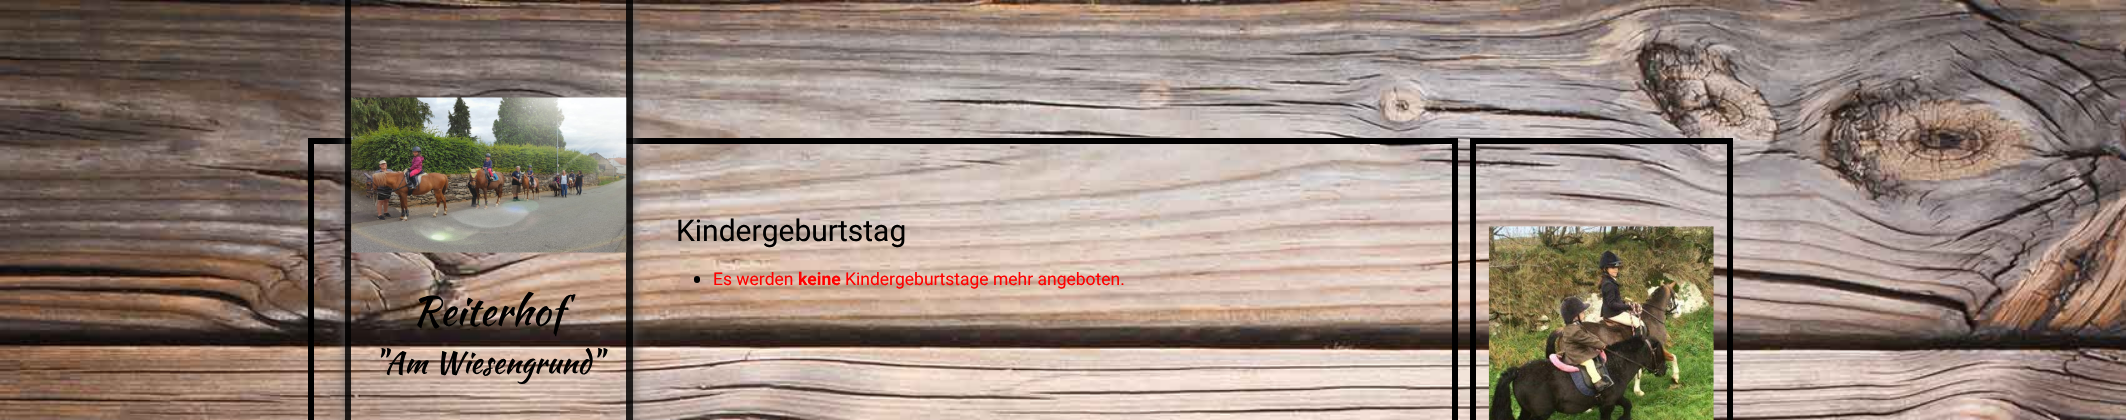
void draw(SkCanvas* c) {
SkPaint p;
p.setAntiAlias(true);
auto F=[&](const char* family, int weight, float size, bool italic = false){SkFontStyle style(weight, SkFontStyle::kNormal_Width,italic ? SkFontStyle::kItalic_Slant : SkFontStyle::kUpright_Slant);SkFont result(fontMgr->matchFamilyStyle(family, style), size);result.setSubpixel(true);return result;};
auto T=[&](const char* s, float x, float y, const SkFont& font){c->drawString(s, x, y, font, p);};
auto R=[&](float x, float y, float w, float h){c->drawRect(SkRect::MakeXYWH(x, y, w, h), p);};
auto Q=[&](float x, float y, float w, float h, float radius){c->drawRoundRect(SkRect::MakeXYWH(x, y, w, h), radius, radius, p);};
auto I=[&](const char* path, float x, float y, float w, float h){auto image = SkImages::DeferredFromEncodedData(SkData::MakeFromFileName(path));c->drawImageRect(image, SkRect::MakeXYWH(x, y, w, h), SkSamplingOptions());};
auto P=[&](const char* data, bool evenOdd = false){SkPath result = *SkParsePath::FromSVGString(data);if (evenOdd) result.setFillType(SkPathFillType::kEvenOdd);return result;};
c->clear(0xffffffff);
I("1.png",0,0,2126,420);
p.setStroke(true);
p.setStrokeWidth(6);
p.setColor(0xff000000);
c->drawRect(SkRect::MakeXYWH(311,141,1144,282),p);
c->save();
c->clipPath(P("M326 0h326v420h-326zm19 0h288v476h-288z",true),true);
p.setStroke(false);
p.setColor(0xd9666666);
p.setMaskFilter(SkMaskFilter::MakeBlur(kNormal_SkBlurStyle, 6));
c->drawRect(SkRect::MakeXYWH(345,0,288,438),p);
p.setMaskFilter(nullptr);
c->restore();
p.setColor(0xd9000000);
R(626,0,7,420);
R(345,0,6,420);
auto f1 = F("Roboto",400,30);
p.setColor(0xff000000);
T("Kindergeburtstag",676,241,f1);
Q(694,276,6,7,3);
auto f2 = F("Roboto",400,17.5);
p.setColor(0xffff0000);
T("Es werden",713,285,f2);
auto f3 = F("Roboto",700,17.5);
T("keine",798,285,f3);
T("Kindergeburtstage mehr angeboten.",845,285,f2);
p.setStroke(true);
p.setColor(0xff000000);
c->drawRect(SkRect::MakeXYWH(1473,141,257,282),p);
I("2.png",1488,226,226,194);
I("3.png",351,97,276,156);
auto f4 = F("Kaushan Script",400,40);
p.setStroke(false);
T("Reiterhof",412,325,f4);
auto f5 = F("Kaushan Script",400,30);
T("\"Am Wiesengrund\"",374,373,f5);
}
